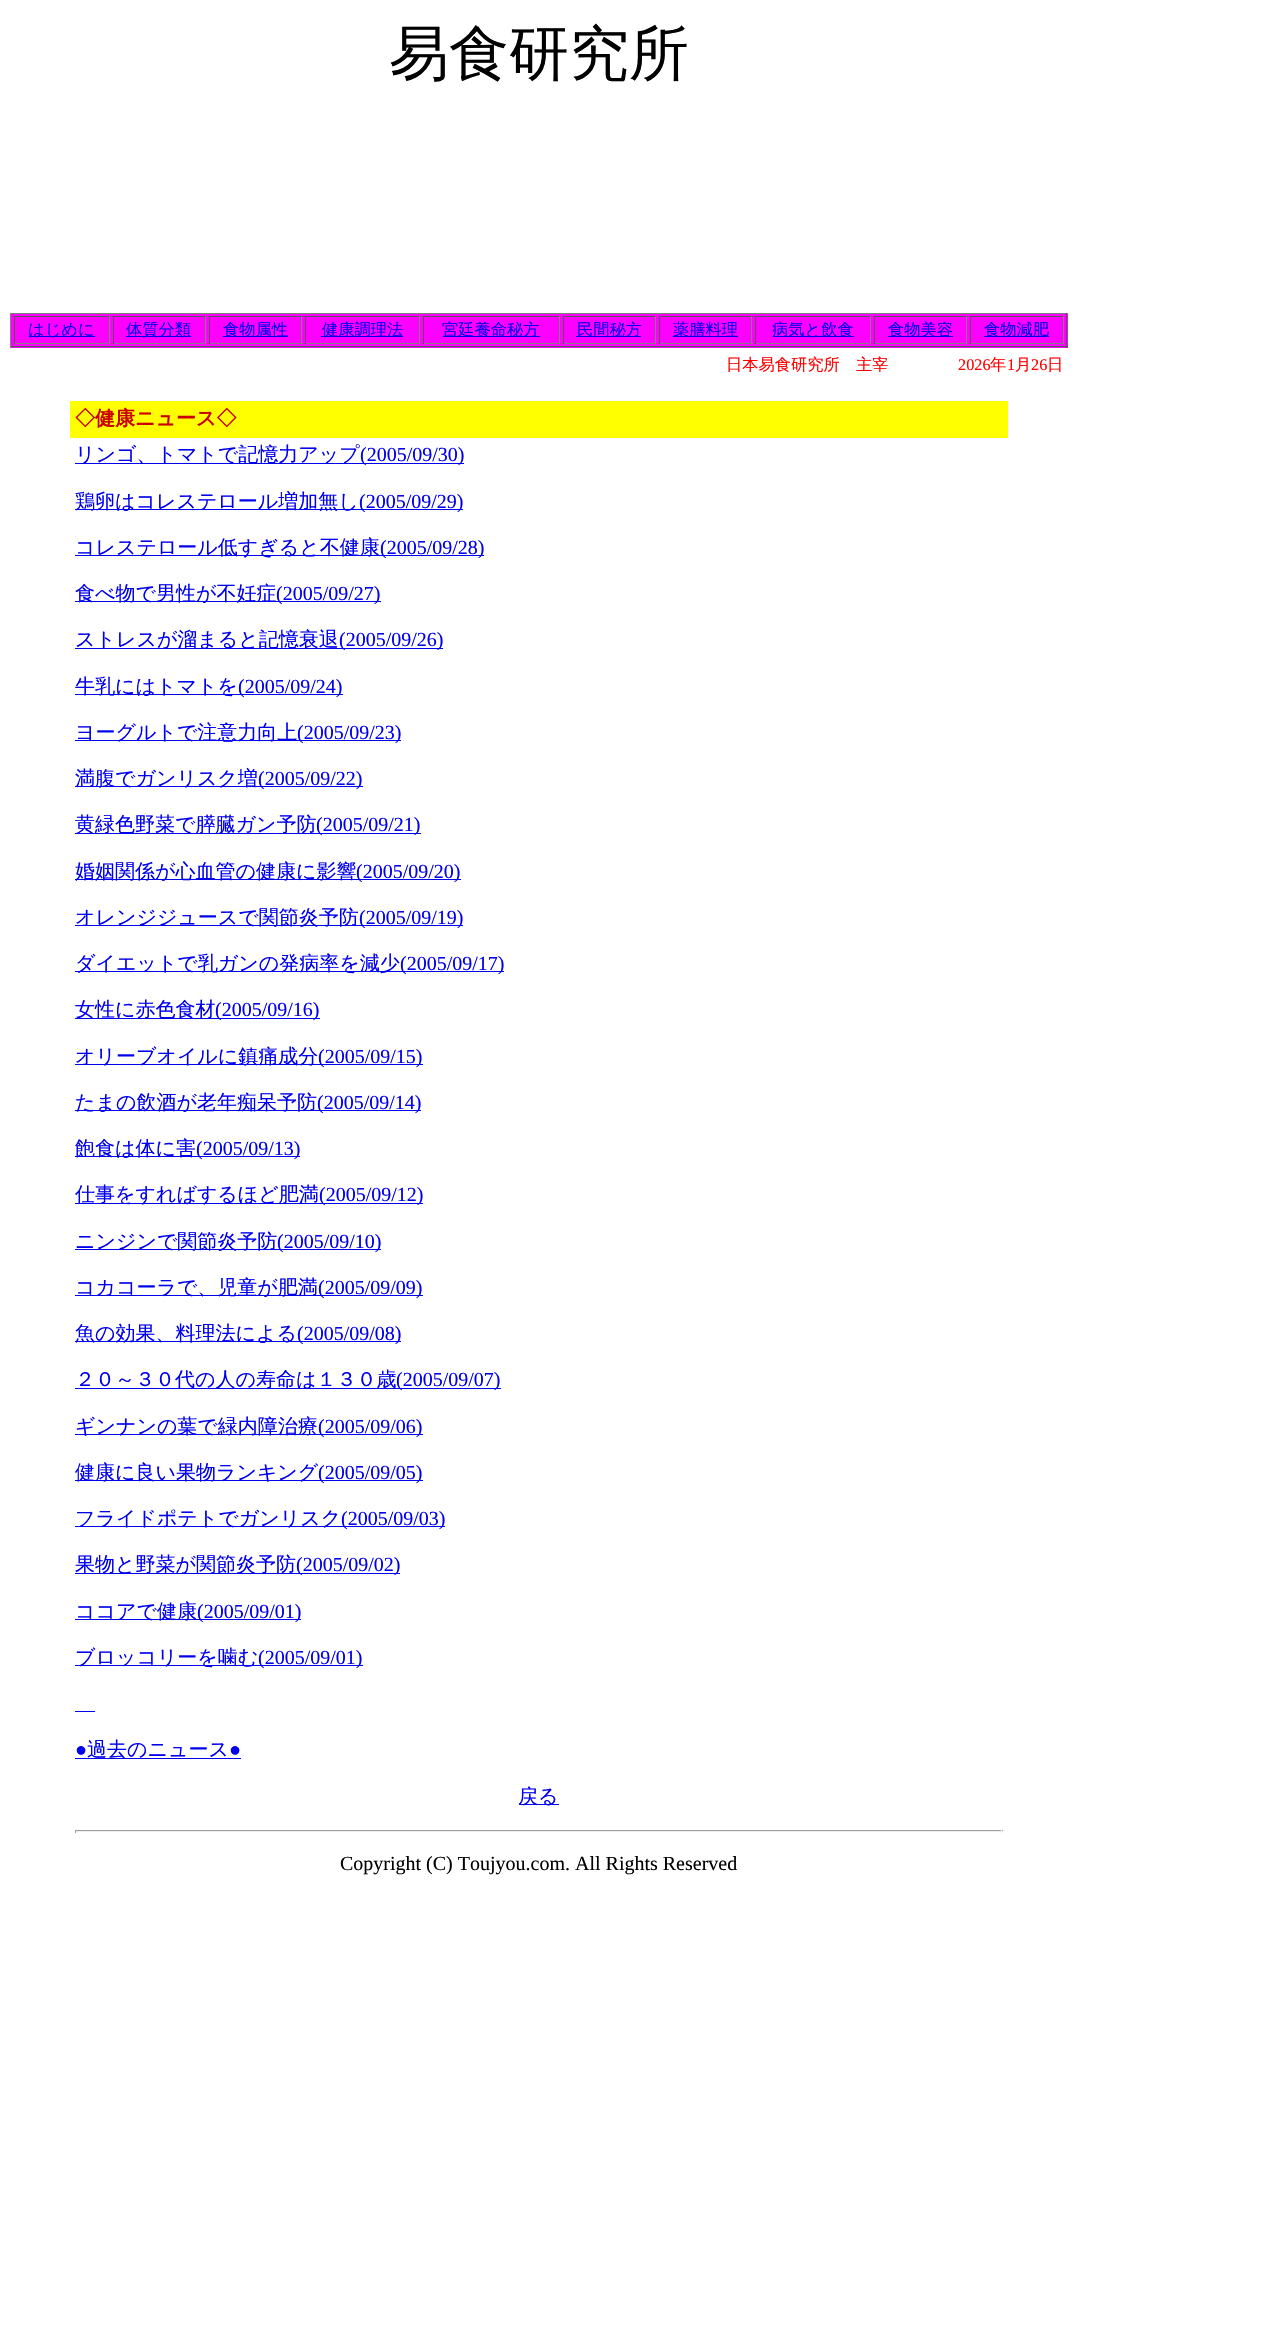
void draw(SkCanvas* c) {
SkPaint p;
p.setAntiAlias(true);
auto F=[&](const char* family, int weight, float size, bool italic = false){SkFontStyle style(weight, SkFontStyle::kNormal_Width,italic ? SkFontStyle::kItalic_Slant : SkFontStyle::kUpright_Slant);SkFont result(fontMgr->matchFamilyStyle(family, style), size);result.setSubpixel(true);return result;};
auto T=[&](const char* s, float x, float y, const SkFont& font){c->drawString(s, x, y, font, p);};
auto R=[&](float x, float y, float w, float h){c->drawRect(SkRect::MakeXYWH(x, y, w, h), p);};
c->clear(0xffffffff);
auto f1 = F("WenQuanYi Zen Hei",500,60);
p.setColor(0xff000000);
T("易食研究所",389,74,f1);
p.setColor(0xffff00ff);
R(11,314,1057,34);
p.setColor(0xff808080);
R(10,313,1058,1);
p.setColor(0xff555555);
R(1066,313,1,35);
R(10,346,1058,1);
p.setColor(0xff808080);
R(10,313,1,35);
p.setColor(0xff555555);
R(14,316,96,1);
p.setColor(0xff808080);
R(109,316,1,28);
R(14,343,96,1);
p.setColor(0xff555555);
R(14,316,1,28);
p.setColor(0xff0000ee);
R(29,336,66,1);
auto f2 = F("WenQuanYi Zen Hei",500,16.25);
T("はじめに",28,335,f2);
p.setColor(0xff555555);
R(113,316,93,1);
p.setColor(0xff808080);
R(205,316,1,28);
R(113,343,93,1);
p.setColor(0xff555555);
R(113,316,1,28);
p.setColor(0xff0000ee);
R(126,336,65,1);
T("体質分類",126,335,f2);
p.setColor(0xff555555);
R(209,316,94,1);
p.setColor(0xff808080);
R(301,316,1,28);
R(209,343,94,1);
p.setColor(0xff555555);
R(209,316,1,28);
p.setColor(0xff0000ee);
R(223,336,65,1);
T("食物属性",223,335,f2);
p.setColor(0xff555555);
R(305,316,115,1);
p.setColor(0xff808080);
R(419,316,1,28);
R(305,343,115,1);
p.setColor(0xff555555);
R(305,316,1,28);
p.setColor(0xff0000ee);
R(321,336,82,1);
T("健康調理法",322,335,f2);
p.setColor(0xff555555);
R(423,316,137,1);
p.setColor(0xff808080);
R(559,316,1,28);
R(423,343,137,1);
p.setColor(0xff555555);
R(423,316,1,28);
p.setColor(0xff0000ee);
R(443,336,97,1);
T("宮廷養命秘方",442,335,f2);
p.setColor(0xff555555);
R(563,316,93,1);
p.setColor(0xff808080);
R(655,316,1,28);
R(563,343,93,1);
p.setColor(0xff555555);
R(563,316,1,28);
p.setColor(0xff0000ee);
R(576,336,65,1);
T("民間秘方",577,335,f2);
p.setColor(0xff555555);
R(659,316,94,1);
p.setColor(0xff808080);
R(751,316,1,28);
R(659,343,94,1);
p.setColor(0xff555555);
R(659,316,1,28);
p.setColor(0xff0000ee);
R(673,336,65,1);
T("薬膳料理",673,335,f2);
p.setColor(0xff555555);
R(755,316,116,1);
p.setColor(0xff808080);
R(870,316,1,28);
R(755,343,116,1);
p.setColor(0xff555555);
R(755,316,1,28);
p.setColor(0xff0000ee);
R(773,336,81,1);
T("病気と飲食",772,335,f2);
p.setColor(0xff555555);
R(874,316,94,1);
p.setColor(0xff808080);
R(966,316,1,28);
R(874,343,94,1);
p.setColor(0xff555555);
R(874,316,1,28);
p.setColor(0xff0000ee);
R(888,336,65,1);
T("食物美容",888,335,f2);
p.setColor(0xff555555);
R(970,316,94,1);
p.setColor(0xff808080);
R(1063,316,1,28);
R(970,343,94,1);
p.setColor(0xff555555);
R(970,316,1,28);
p.setColor(0xff0000ee);
R(984,336,65,1);
T("食物減肥",984,335,f2);
p.setColor(0xffff0000);
T("日本易食研究所　主宰",726,370,f2);
auto f3 = F("Liberation Serif",400,16.25);
T("2026",958,370,f3);
T("年",990,370,f2);
T("1",1007,370,f3);
T("月",1015,370,f2);
T("26",1031,370,f3);
T("日",1047,370,f2);
p.setColor(0xffffff00);
R(70,401,938,37);
auto f4 = F("WenQuanYi Zen Hei",700,20);
p.setColor(0xffcc0000);
T("◇健康ニュース◇",75,425,f4);
p.setColor(0xff0000ee);
R(75,463,389,1);
auto f5 = F("WenQuanYi Zen Hei",500,20);
T("リンゴ、トマトで記憶力アップ",75,461,f5);
auto f6 = F("Liberation Serif",400,20);
T("(2005/09/30)",360,461,f6);
R(75,509,388,1);
T("鶏卵はコレステロール増加無し",75,508,f5);
T("(2005/09/29)",359,508,f6);
R(75,555,409,1);
T("コレステロール低すぎると不健康",75,554,f5);
T("(2005/09/28)",380,554,f6);
R(75,601,306,1);
T("食べ物で男性が不妊症",75,600,f5);
T("(2005/09/27)",276,600,f6);
R(75,648,368,1);
T("ストレスが溜まると記憶衰退",75,646,f5);
T("(2005/09/26)",339,646,f6);
R(75,694,268,1);
T("牛乳にはトマトを",75,693,f5);
T("(2005/09/24)",238,693,f6);
R(75,740,326,1);
T("ヨーグルトで注意力向上",75,739,f5);
T("(2005/09/23)",297,739,f6);
R(75,786,288,1);
T("満腹でガンリスク増",75,785,f5);
T("(2005/09/22)",258,785,f6);
R(75,833,346,1);
T("黄緑色野菜で膵臓ガン予防",75,831,f5);
T("(2005/09/21)",316,831,f6);
R(75,879,386,1);
T("婚姻関係が心血管の健康に影響",75,878,f5);
T("(2005/09/20)",356,878,f6);
R(75,925,388,1);
T("オレンジジュースで関節炎予防",75,924,f5);
T("(2005/09/19)",359,924,f6);
R(75,971,429,1);
T("ダイエットで乳ガンの発病率を減少",75,970,f5);
T("(2005/09/17)",400,970,f6);
R(75,1018,245,1);
T("女性に赤色食材",75,1016,f5);
T("(2005/09/16)",215,1016,f6);
R(75,1064,348,1);
T("オリーブオイルに鎮痛成分",75,1063,f5);
T("(2005/09/15)",318,1063,f6);
R(75,1110,346,1);
T("たまの飲酒が老年痴呆予防",75,1109,f5);
T("(2005/09/14)",317,1109,f6);
R(75,1156,225,1);
T("飽食は体に害",75,1155,f5);
T("(2005/09/13)",196,1155,f6);
R(75,1203,348,1);
T("仕事をすればするほど肥満",75,1201,f5);
T("(2005/09/12)",319,1201,f6);
R(75,1249,306,1);
T("ニンジンで関節炎予防",75,1248,f5);
T("(2005/09/10)",277,1248,f6);
R(75,1295,348,1);
T("コカコーラで、児童が肥満",75,1294,f5);
T("(2005/09/09)",318,1294,f6);
R(75,1341,326,1);
T("魚の効果、料理法による",75,1340,f5);
T("(2005/09/08)",297,1340,f6);
R(75,1388,426,1);
T("２０～３０代の人の寿命は１３０歳",75,1386,f5);
T("(2005/09/07)",396,1386,f6);
R(75,1434,348,1);
T("ギンナンの葉で緑内障治療",75,1433,f5);
T("(2005/09/06)",318,1433,f6);
R(75,1480,348,1);
T("健康に良い果物ランキング",75,1479,f5);
T("(2005/09/05)",318,1479,f6);
R(75,1526,370,1);
T("フライドポテトでガンリスク",75,1525,f5);
T("(2005/09/03)",341,1525,f6);
R(75,1573,325,1);
T("果物と野菜が関節炎予防",75,1571,f5);
T("(2005/09/02)",296,1571,f6);
R(75,1619,226,1);
T("ココアで健康",75,1618,f5);
T("(2005/09/01)",197,1618,f6);
R(75,1665,288,1);
T("ブロッコリーを噛む",75,1664,f5);
T("(2005/09/01)",258,1664,f6);
R(75,1711,20,1);
T("●",75,1756,f6);
R(75,1758,166,1);
T("過去のニュース",87,1756,f5);
T("●",229,1756,f6);
R(519,1804,40,1);
T("戻る",518,1803,f5);
p.setColor(0xff9f9f9f);
R(75,1830,928,1);
p.setColor(0xffeeeeee);
R(1001,1830,1,3);
R(75,1831,928,1);
p.setColor(0xff9f9f9f);
R(75,1830,1,3);
p.setColor(0xff000000);
T("Copyright (C) Toujyou.com. All Rights Reserved",340,1870,f6);
}
